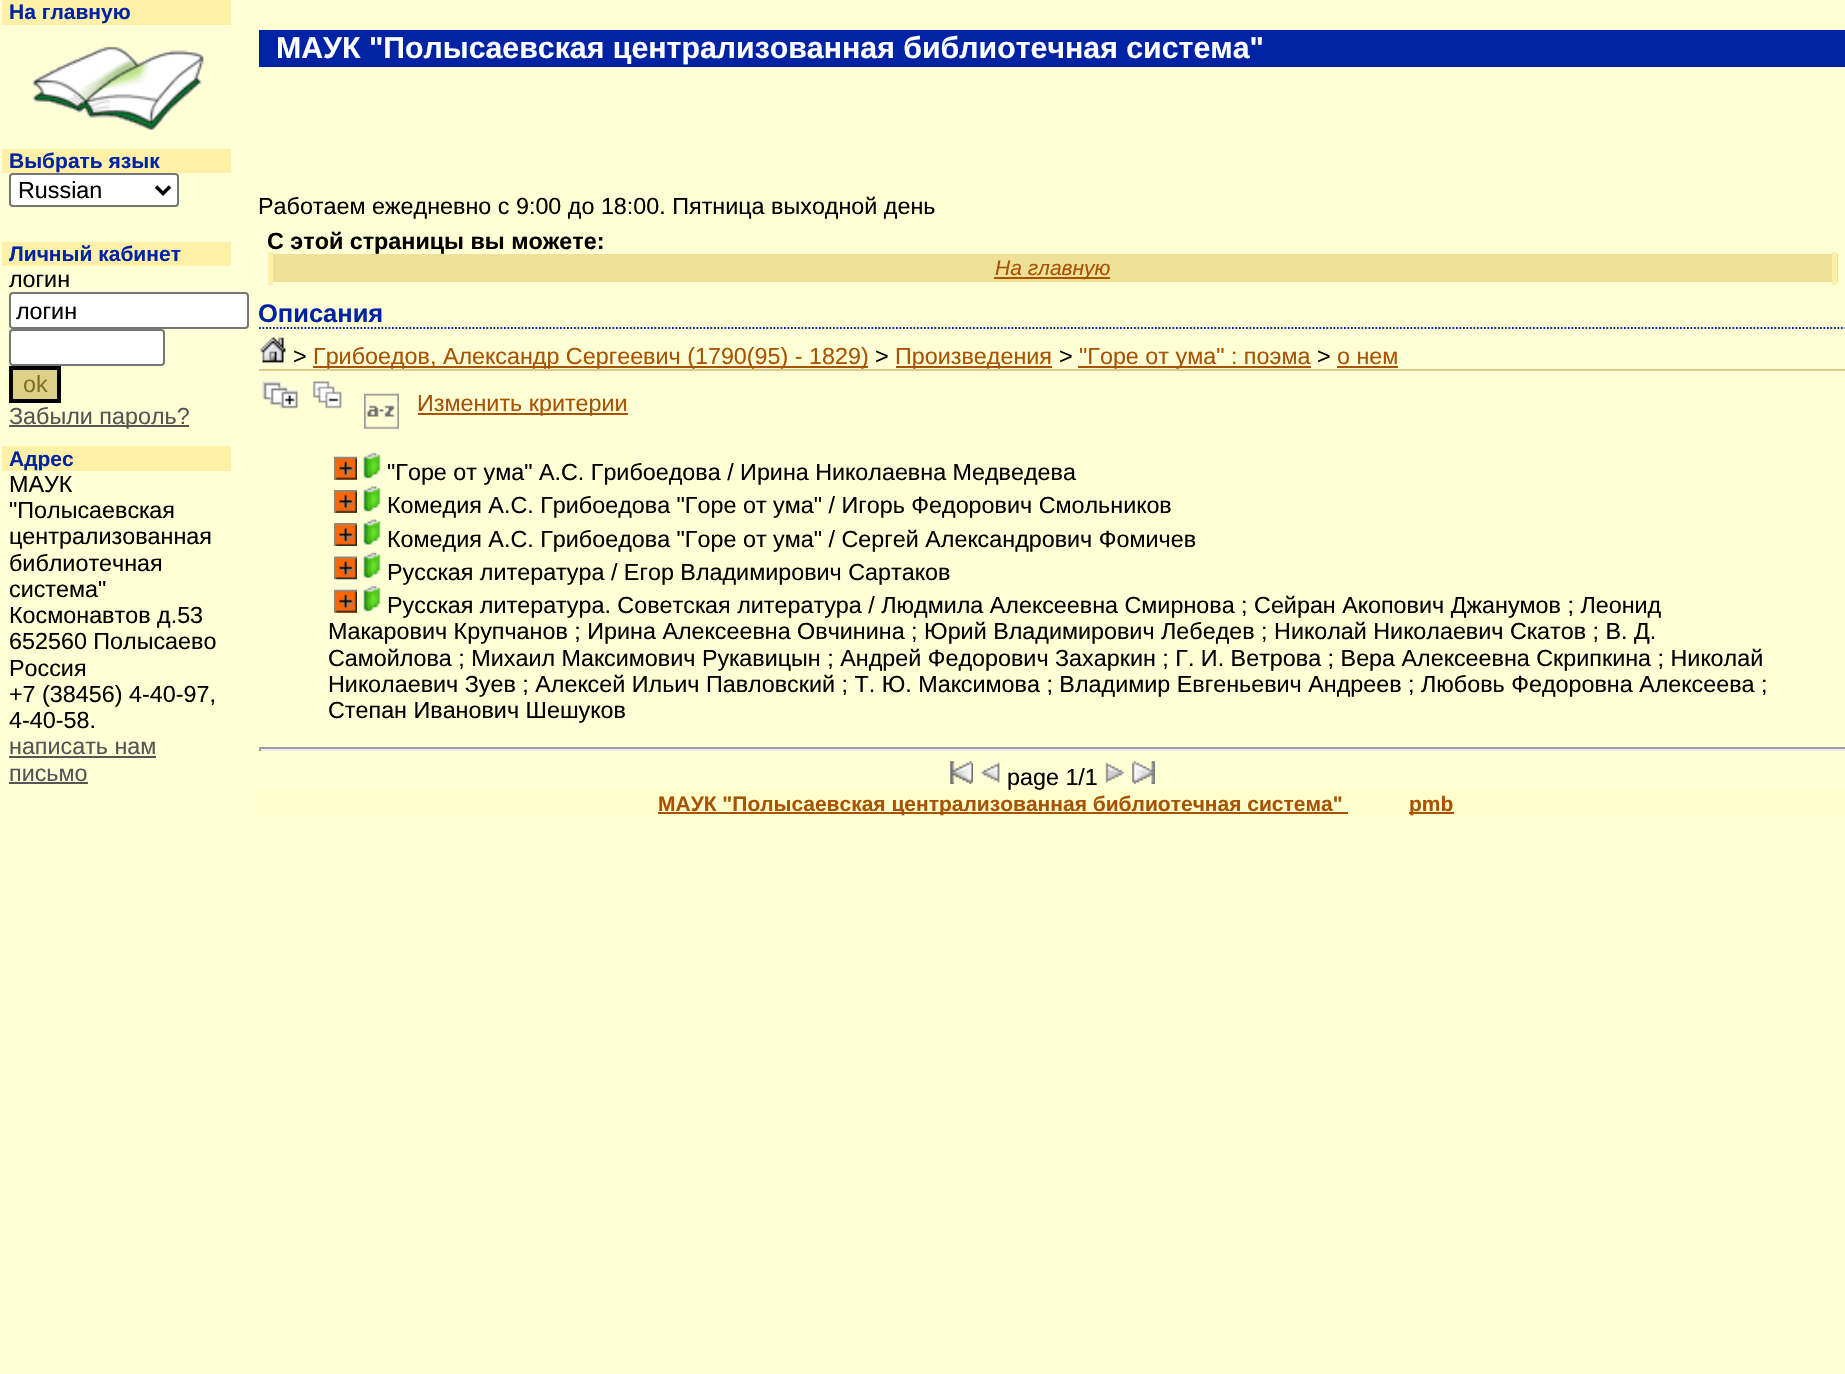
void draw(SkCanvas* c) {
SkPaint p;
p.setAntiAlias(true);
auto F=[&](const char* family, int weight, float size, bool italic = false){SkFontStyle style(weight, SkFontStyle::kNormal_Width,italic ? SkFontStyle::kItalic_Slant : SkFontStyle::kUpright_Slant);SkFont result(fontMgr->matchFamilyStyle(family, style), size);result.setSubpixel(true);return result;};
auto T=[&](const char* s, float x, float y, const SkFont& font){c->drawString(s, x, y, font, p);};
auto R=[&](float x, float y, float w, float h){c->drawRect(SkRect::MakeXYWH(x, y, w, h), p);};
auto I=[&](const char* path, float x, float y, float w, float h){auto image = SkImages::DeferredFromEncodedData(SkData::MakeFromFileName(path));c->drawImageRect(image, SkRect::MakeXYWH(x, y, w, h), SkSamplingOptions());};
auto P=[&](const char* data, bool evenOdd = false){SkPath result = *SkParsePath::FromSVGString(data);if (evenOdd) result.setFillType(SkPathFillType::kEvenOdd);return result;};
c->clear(0xffffffd5);
p.setColor(0xfffff0a7);
R(2,0,229,25);
auto f1 = F("Liberation Sans",700,21);
p.setColor(0xff0023a4);
T("На главную",9,19,f1);
I("1.png",32,46,172,84);
p.setColor(0xfffff0a7);
R(2,149,229,24);
p.setColor(0xff0023a4);
T("Выбрать язык",9,168,f1);
p.setColor(0xffffffff);
c->drawRoundRect(SkRect::MakeXYWH(10,174,168,32),3,3,p);
p.setStroke(true);
p.setStrokeWidth(2);
p.setColor(0xff767676);
c->drawRoundRect(SkRect::MakeXYWH(10,174,168,32),3,3,p);
p.setStrokeWidth(3.5);
p.setColor(0xff000000);
c->drawPath(P("M156 186.5l7 7l7-7"),p);
auto f2 = F("Liberation Sans",400,23.33);
p.setStroke(false);
T("Russian",18,198,f2);
p.setColor(0xfffff0a7);
R(2,242,229,24);
p.setColor(0xff0023a4);
T("Личный кабинет",9,261,f1);
p.setColor(0xff000000);
T("логин",9,287,f2);
p.setColor(0xffffffff);
c->drawRoundRect(SkRect::MakeXYWH(10,293,238,35),3,3,p);
p.setStroke(true);
p.setStrokeWidth(2);
p.setColor(0xff767676);
c->drawRoundRect(SkRect::MakeXYWH(10,293,238,35),3,3,p);
p.setStroke(false);
p.setColor(0xff000000);
T("логин",16,319,f2);
p.setColor(0xffffffff);
c->drawRoundRect(SkRect::MakeXYWH(10,330,154,35),3,3,p);
p.setStroke(true);
p.setColor(0xff767676);
c->drawRoundRect(SkRect::MakeXYWH(10,330,154,35),3,3,p);
p.setStroke(false);
p.setColor(0xffdfd087);
c->drawRect(SkRect::MakeXYWH(11,368,48,33),p);
p.setStroke(true);
p.setStrokeWidth(4);
p.setColor(0xff000000);
c->drawRect(SkRect::MakeXYWH(11,368,48,33),p);
p.setStroke(false);
p.setColor(0xff7f7027);
T("ok",23,392,f2);
p.setColor(0xff555555);
R(9,425,180,2);
T("Забыли пароль?",9,424,f2);
p.setColor(0xfffff0a7);
R(2,446,229,25);
p.setColor(0xff0023a4);
T("Адрес",9,466,f1);
p.setColor(0xff000000);
T("МАУК",9,492,f2);
T("\"Полысаевская",9,518,f2);
T("централизованная",9,544,f2);
T("библиотечная",9,571,f2);
T("система\"",9,597,f2);
T("Космонавтов д.53",9,623,f2);
T("652560 Полысаево",9,649,f2);
T("Россия",9,676,f2);
T("+7 (38456) 4-40-97,",9,702,f2);
T("4-40-58.",9,728,f2);
p.setColor(0xff555555);
T("написать нам",9,754,f2);
R(9,756,147,2);
T("письмо",9,781,f2);
R(9,782,79,2);
p.setColor(0xff0023a4);
R(259,30,1586,37);
auto f3 = F("Liberation Sans",700,30.3);
p.setColor(0xffffffff);
T("МАУК \"Полысаевская централизованная библиотечная система\"",276,58,f3);
p.setColor(0xff000000);
T("Работаем ежедневно с 9:00 до 18:00. Пятница выходной день",258,214,f2);
p.setColor(0xfffff0a7);
R(268,252,5,33);
auto f4 = F("Liberation Sans",700,23.33);
p.setColor(0xff000000);
T("С этой страницы вы можете:",267,249,f4);
p.setColor(0xffefe097);
R(273,254,1565,28);
p.setColor(0xfffff0a7);
R(1832,252,5,33);
p.setColor(0xffa75204);
R(994,277,116,2);
auto f5 = F("Liberation Sans",400,21,true);
T("На главную",995,275,f5);
p.setStroke(true);
p.setStrokeWidth(1.8);
p.setColor(0xff0023a4);
p.setPathEffect(SkDashPathEffect::Make({{1.75f,1.75f}}, 0));
c->drawPath(P("M259 328h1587"),p);
p.setPathEffect(nullptr);
auto f6 = F("Liberation Sans",700,25.5);
p.setStroke(false);
T("Описания",258,322,f6);
p.setColor(0xffddcb8c);
R(259,369,1586,2);
I("2.png",260,337,26,26);
p.setColor(0xff000000);
T(">",293,364,f2);
p.setColor(0xffa75204);
R(313,366,555,2);
T("Грибоедов, Александр Сергеевич (1790(95) - 1829)",313,364,f2);
p.setColor(0xff000000);
T(">",875,364,f2);
p.setColor(0xffa75204);
R(896,366,156,2);
T("Произведения",895,364,f2);
p.setColor(0xff000000);
T(">",1059,364,f2);
p.setColor(0xffa75204);
R(1078,366,233,2);
T("\"Горе от ума\" : поэма",1079,364,f2);
p.setColor(0xff000000);
T(">",1317,364,f2);
p.setColor(0xffa75204);
T("о нем",1337,364,f2);
R(1337,366,61,2);
I("3.png",262,381,36,28);
I("4.png",312,381,30,28);
I("5.png",364,393,35,36);
R(418,413,210,2);
T("Изменить критерии",417,411,f2);
p.setColor(0xffff6600);
R(334,457,23,23);
I("6.png",334,456,23,24);
I("7.png",362,452,19,27);
p.setColor(0xff000000);
T("\"Горе от ума\" А.С. Грибоедова / Ирина Николаевна Медведева",387,480,f2);
p.setColor(0xffff6600);
R(334,490,23,23);
I("8.png",362,486,19,26);
I("9.png",334,490,23,23);
p.setColor(0xff000000);
T("Комедия А.С. Грибоедова \"Горе от ума\" / Игорь Федорович Смольников",387,513,f2);
p.setColor(0xffff6600);
R(334,523,23,23);
I("10.png",362,519,19,26);
I("11.png",334,523,23,23);
p.setColor(0xff000000);
T("Комедия А.С. Грибоедова \"Горе от ума\" / Сергей Александрович Фомичев",387,547,f2);
p.setColor(0xffff6600);
R(334,557,22,22);
I("12.png",334,556,23,24);
I("13.png",362,552,19,26);
p.setColor(0xff000000);
T("Русская литература / Егор Владимирович Сартаков",387,580,f2);
p.setColor(0xffff6600);
R(334,590,23,23);
I("6.png",334,589,23,24);
I("7.png",362,585,19,27);
p.setColor(0xff000000);
T("Русская литература. Советская литература / Людмила Алексеевна Смирнова ; Сейран Акопович Джанумов ; Леонид",387,613,f2);
T("Макарович Крупчанов ; Ирина Алексеевна Овчинина ; Юрий Владимирович Лебедев ; Николай Николаевич Скатов ; В. Д.",328,639,f2);
T("Самойлова ; Михаил Максимович Рукавицын ; Андрей Федорович Захаркин ; Г. И. Ветрова ; Вера Алексеевна Скрипкина ; Николай",328,666,f2);
T("Николаевич Зуев ; Алексей Ильич Павловский ; Т. Ю. Максимова ; Владимир Евгеньевич Андреев ; Любовь Федоровна Алексеева ;",328,692,f2);
T("Степан Иванович Шешуков",328,718,f2);
p.setColor(0xff9f9f9f);
R(259,747,1586,2);
p.setColor(0xffeeeeee);
R(259,749,1586,2);
p.setColor(0xff9f9f9f);
R(259,747,2,4);
I("14.png",950,761,23,23);
I("15.png",981,762,19,21);
p.setColor(0xffffffcc);
R(259,789,1586,27);
p.setColor(0xff000000);
T("page 1/1",1007,785,f2);
I("16.png",1105,762,19,21);
I("17.png",1132,761,23,23);
p.setColor(0xffa75204);
R(658,812,690,2);
T("МАУК \"Полысаевская централизованная библиотечная система\"",658,811,f1);
R(1409,812,45,2);
T("pmb",1409,811,f1);
}
